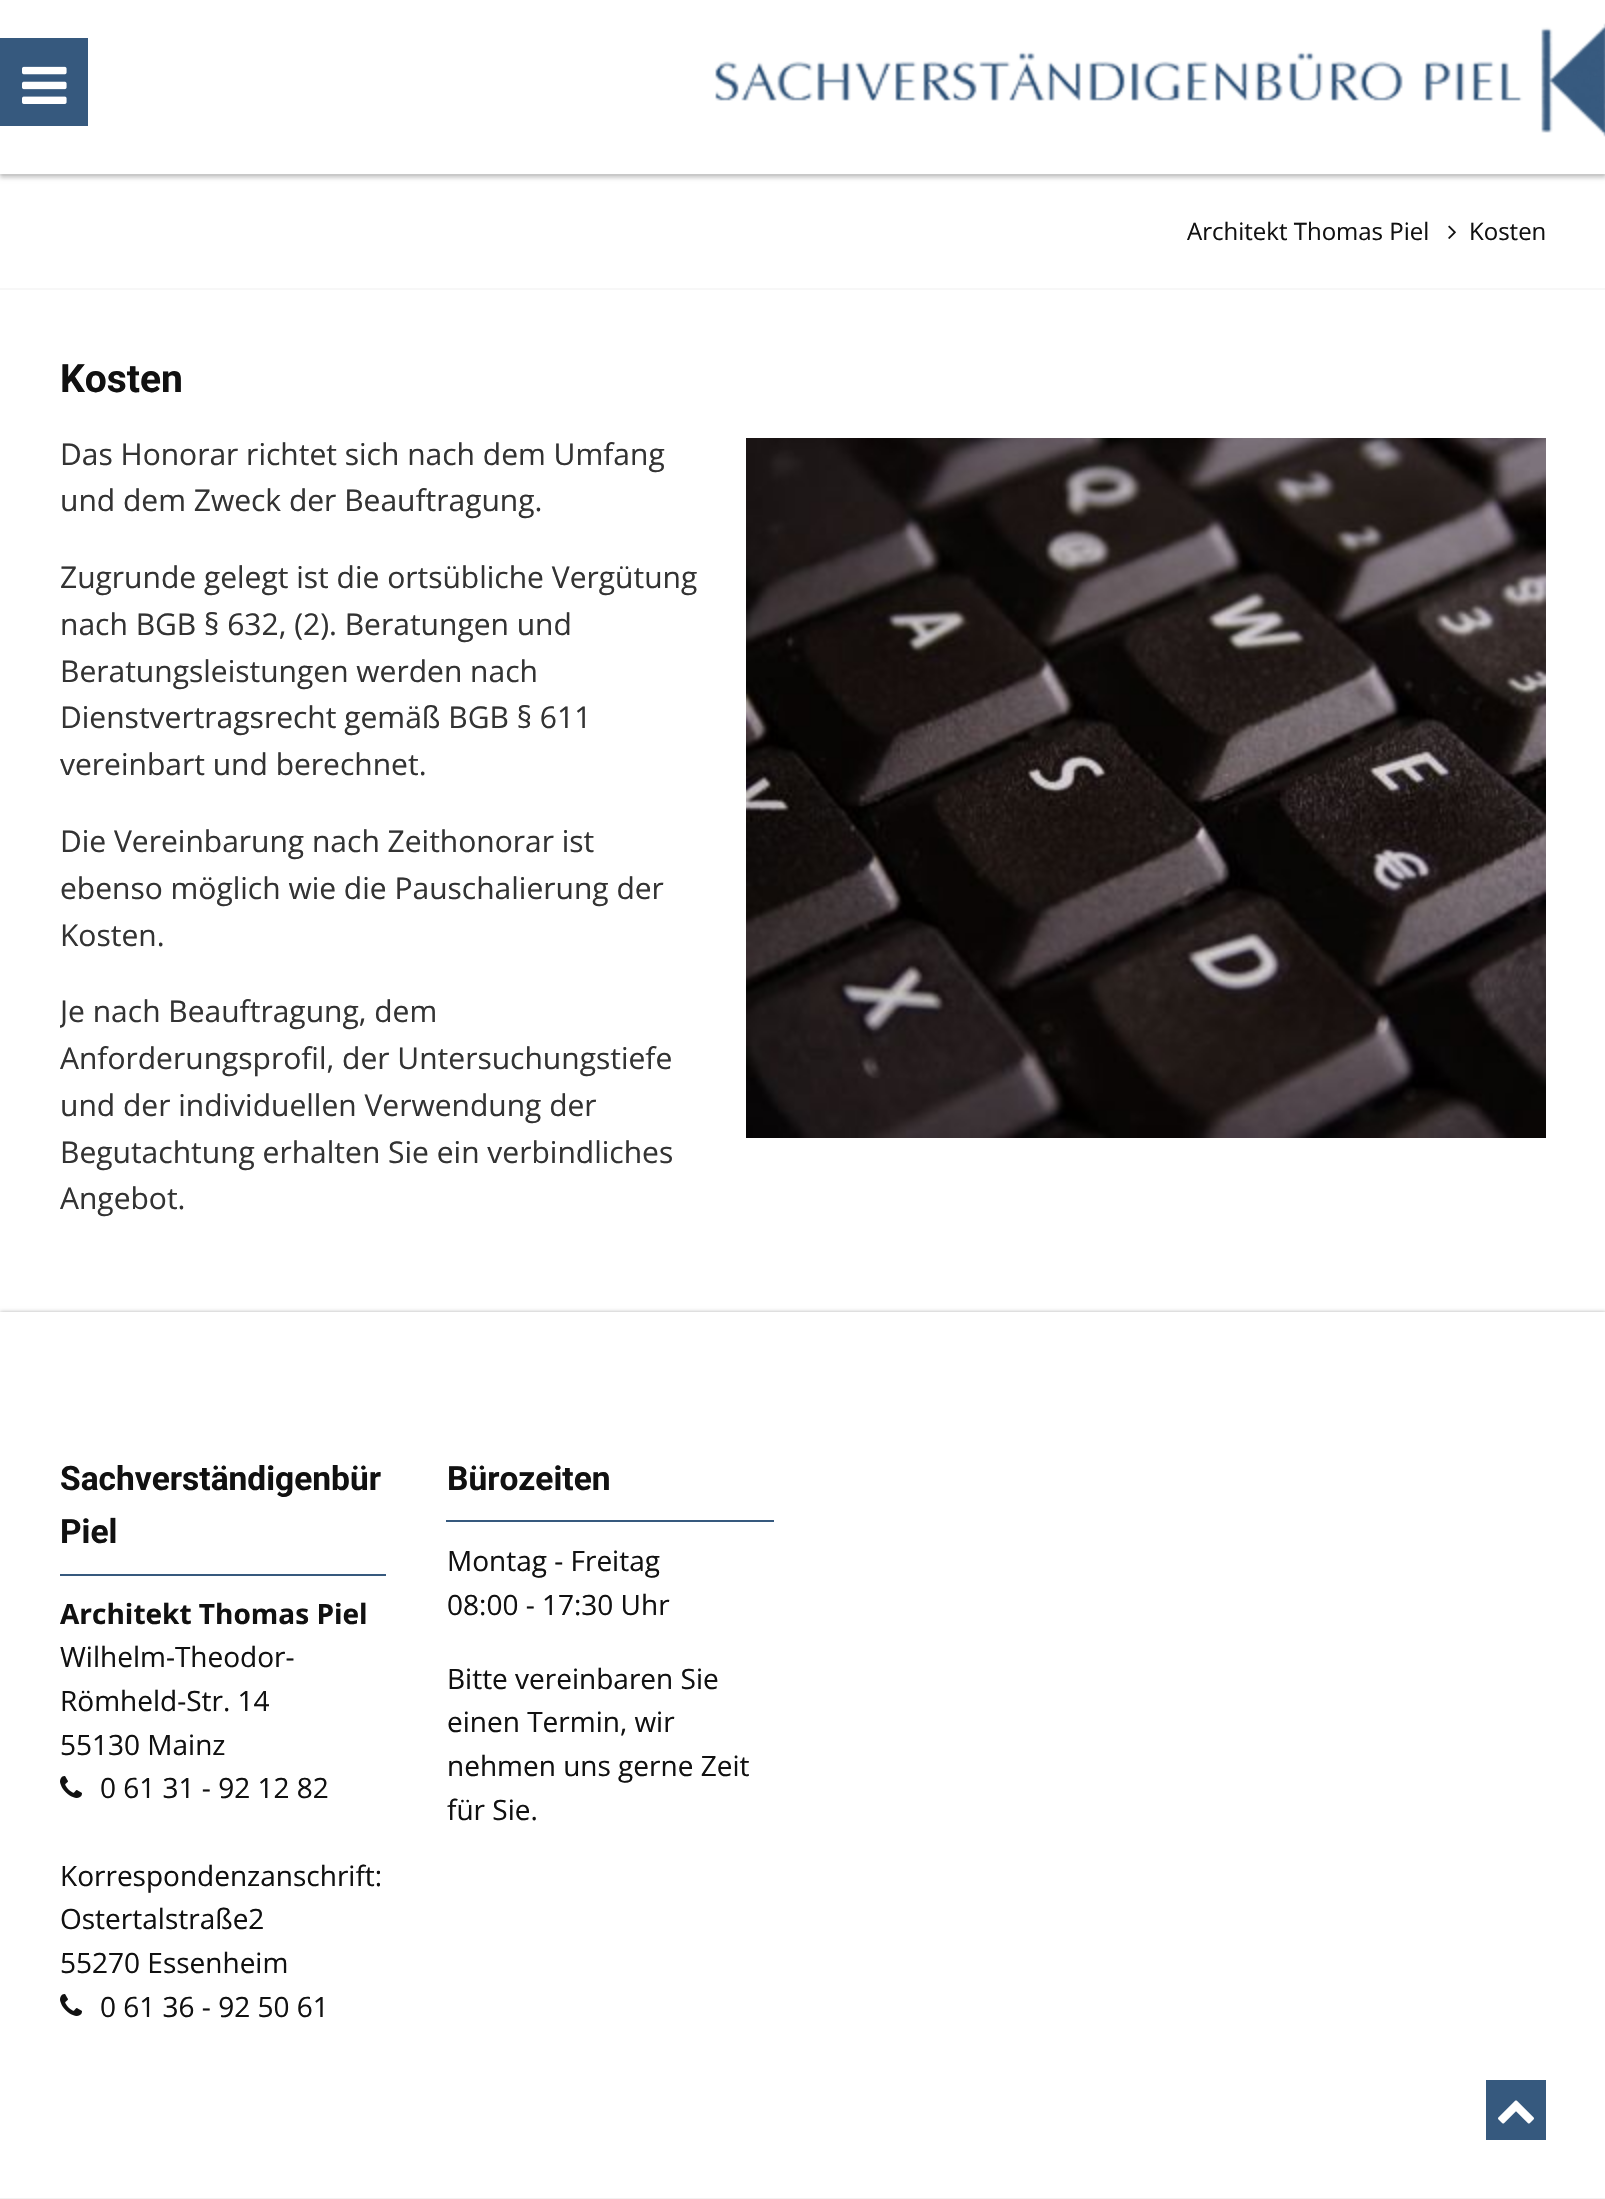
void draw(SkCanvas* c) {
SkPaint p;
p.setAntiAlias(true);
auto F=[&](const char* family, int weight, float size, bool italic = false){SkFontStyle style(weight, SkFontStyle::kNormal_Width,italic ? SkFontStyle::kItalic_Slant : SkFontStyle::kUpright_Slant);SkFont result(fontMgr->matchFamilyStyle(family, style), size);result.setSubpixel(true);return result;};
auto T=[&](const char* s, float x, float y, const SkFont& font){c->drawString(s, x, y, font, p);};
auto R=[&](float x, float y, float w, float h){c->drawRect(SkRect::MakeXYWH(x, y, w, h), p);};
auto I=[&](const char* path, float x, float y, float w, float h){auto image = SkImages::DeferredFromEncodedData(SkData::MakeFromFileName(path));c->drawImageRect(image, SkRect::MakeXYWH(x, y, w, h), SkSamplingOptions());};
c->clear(0xffffffff);
p.setColor(0xfff7f7f7);
R(0,174,1605,2);
p.setColor(0x33000000);
p.setMaskFilter(SkMaskFilter::MakeBlur(kNormal_SkBlurStyle, 2));
c->drawRect(SkRect::MakeXYWH(0,-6,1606,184),p);
p.setMaskFilter(nullptr);
p.setColor(0xffffffff);
R(0,0,1605,174);
p.setColor(0xff36597e);
R(0,38,88,88);
I("1.png",22,66,45,38);
I("2.png",715,23,890,114);
p.setColor(0xfff7f7f7);
R(0,288,1605,2);
auto f1 = F("Open Sans",400,24);
p.setColor(0xff111111);
T("Architekt Thomas Piel",1187,240,f1);
I("3.png",1448,225,8,14);
T("Kosten",1469,240,f1);
auto f2 = F("Roboto",700,39);
T("Kosten",60,392,f2);
auto f3 = F("Open Sans",400,30);
p.setColor(0xff333333);
T("Das Honorar richtet sich nach dem Umfang",60,465,f3);
T("und dem Zweck der Beauftragung.",60,511,f3);
I("4.png",746,438,800,700);
T("Zugrunde gelegt ist die ortsübliche Vergütung",60,588,f3);
T("nach BGB § 632, (2). Beratungen und",60,635,f3);
T("Beratungsleistungen werden nach",60,682,f3);
T("Dienstvertragsrecht gemäß BGB § 611",60,728,f3);
T("vereinbart und berechnet.",60,775,f3);
T("Die Vereinbarung nach Zeithonorar ist",60,852,f3);
T("ebenso möglich wie die Pauschalierung der",60,899,f3);
T("Kosten.",60,946,f3);
c->save();
c->clipRect(SkRect::MakeXYWH(60,350,1486,902));
T("Je nach Beauftragung, dem",60,1022,f3);
c->restore();
T("Anforderungsprofil, der Untersuchungstiefe",60,1069,f3);
T("und der individuellen Verwendung der",60,1116,f3);
T("Begutachtung erhalten Sie ein verbindliches",60,1163,f3);
T("Angebot.",60,1209,f3);
p.setColor(0x4d000000);
p.setMaskFilter(SkMaskFilter::MakeBlur(kNormal_SkBlurStyle, 2));
c->drawRect(SkRect::MakeXYWH(0,1312,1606,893),p);
p.setMaskFilter(nullptr);
p.setColor(0xffffffff);
R(0,1312,1605,886);
p.setColor(0xff36597e);
R(60,1574,326,2);
auto f4 = F("Roboto",700,33.5);
p.setColor(0xff111111);
T("Sachverständigenbür",60,1490,f4);
T("Piel",60,1543,f4);
auto f5 = F("Open Sans",700,28);
T("Architekt Thomas Piel",60,1624,f5);
auto f6 = F("Open Sans",400,28);
T("Wilhelm-Theodor-",60,1667,f6);
T("Römheld-Str. 14",60,1711,f6);
T("55130 Mainz",60,1755,f6);
I("5.png",60,1776,22,22);
T("0 61 31 - 92 12 82",100,1798,f6);
T("Korrespondenzanschrift:",60,1886,f6);
T("Ostertalstraße2",60,1929,f6);
T("55270 Essenheim",60,1973,f6);
I("5.png",60,1994,22,22);
T("0 61 36 - 92 50 61",100,2017,f6);
p.setColor(0xff36597e);
R(446,1520,328,2);
p.setColor(0xff111111);
T("Bürozeiten",447,1490,f4);
T("Montag - Freitag",447,1571,f6);
T("08:00 - 17:30 Uhr",447,1615,f6);
T("Bitte vereinbaren Sie",447,1689,f6);
T("einen Termin, wir",447,1732,f6);
T("nehmen uns gerne Zeit",447,1776,f6);
T("für Sie.",447,1820,f6);
p.setColor(0xff36597e);
R(1486,2080,60,60);
I("6.png",1498,2100,36,24);
p.setColor(0xfff2f2f2);
R(0,2198,1605,1);
}
